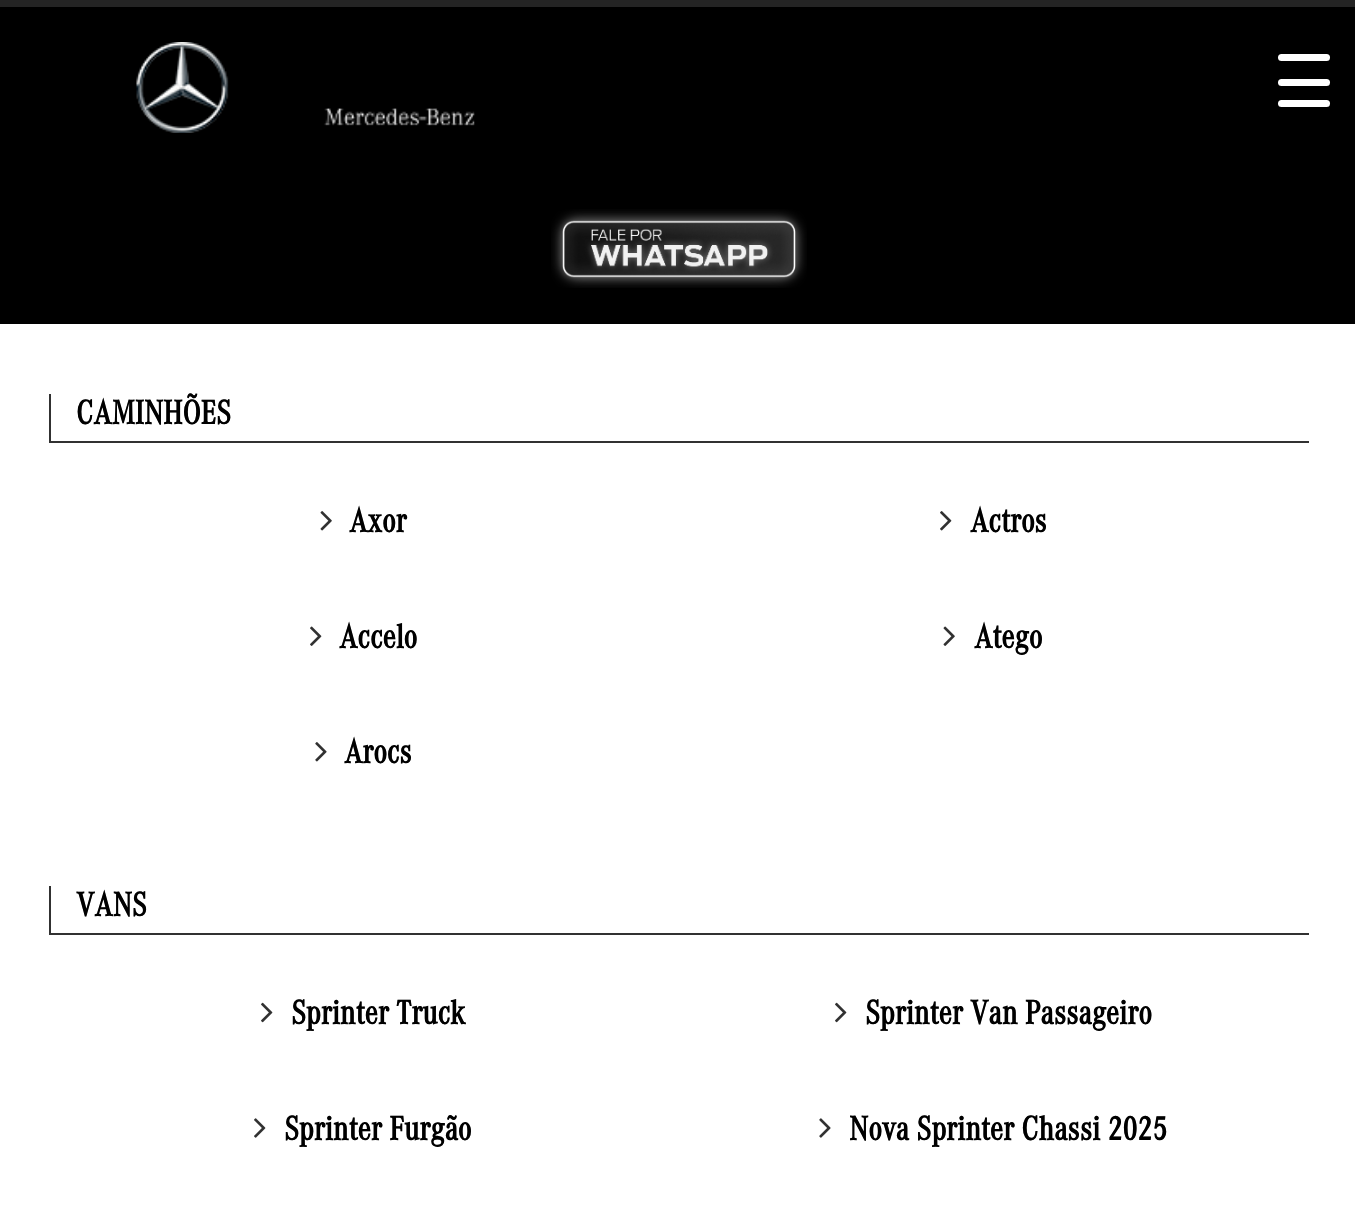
void draw(SkCanvas* c) {
SkPaint p;
p.setAntiAlias(true);
auto F=[&](const char* family, int weight, float size, bool italic = false){SkFontStyle style(weight, SkFontStyle::kNormal_Width,italic ? SkFontStyle::kItalic_Slant : SkFontStyle::kUpright_Slant);SkFont result(fontMgr->matchFamilyStyle(family, style), size);result.setSubpixel(true);return result;};
auto T=[&](const char* s, float x, float y, const SkFont& font){c->drawString(s, x, y, font, p);};
auto R=[&](float x, float y, float w, float h){c->drawRect(SkRect::MakeXYWH(x, y, w, h), p);};
auto Q=[&](float x, float y, float w, float h, float radius){c->drawRoundRect(SkRect::MakeXYWH(x, y, w, h), radius, radius, p);};
auto I=[&](const char* path, float x, float y, float w, float h){auto image = SkImages::DeferredFromEncodedData(SkData::MakeFromFileName(path));c->drawImageRect(image, SkRect::MakeXYWH(x, y, w, h), SkSamplingOptions());};
c->clear(0xff000000);
p.setColor(0xff242424);
R(0,0,1355,7);
I("1.png",136,42,339,91);
p.setColor(0xffffffff);
Q(1278,54,52,7,3.5);
Q(1278,79,52,7,3.5);
Q(1278,100,52,7,3.5);
I("2.png",551,209,256,79);
R(0,324,1355,887);
p.setColor(0xff313131);
R(49,441,1260,2);
R(49,394,2,49);
auto f1 = F("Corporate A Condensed",700,35);
p.setColor(0xff000000);
T("CAMINHÕES",76,424,f1);
I("3.png",320,511,12,20);
T("Axor",349,532,f1);
I("4.png",940,511,12,20);
T("Actros",970,532,f1);
I("5.png",310,626,12,20);
T("Accelo",339,648,f1);
I("6.png",943,626,12,20);
T("Atego",974,648,f1);
I("7.png",315,742,12,20);
T("Arocs",344,763,f1);
p.setColor(0xff313131);
R(49,933,1260,2);
R(49,886,2,49);
p.setColor(0xff000000);
T("VANS",76,916,f1);
I("8.png",261,1002,12,21);
T("Sprinter Truck",291,1024,f1);
I("8.png",835,1002,12,21);
T("Sprinter Van Passageiro",865,1024,f1);
I("9.png",254,1118,12,20);
T("Sprinter Furgão",284,1140,f1);
I("10.png",819,1118,12,20);
T("Nova Sprinter Chassi 2025",849,1140,f1);
}
